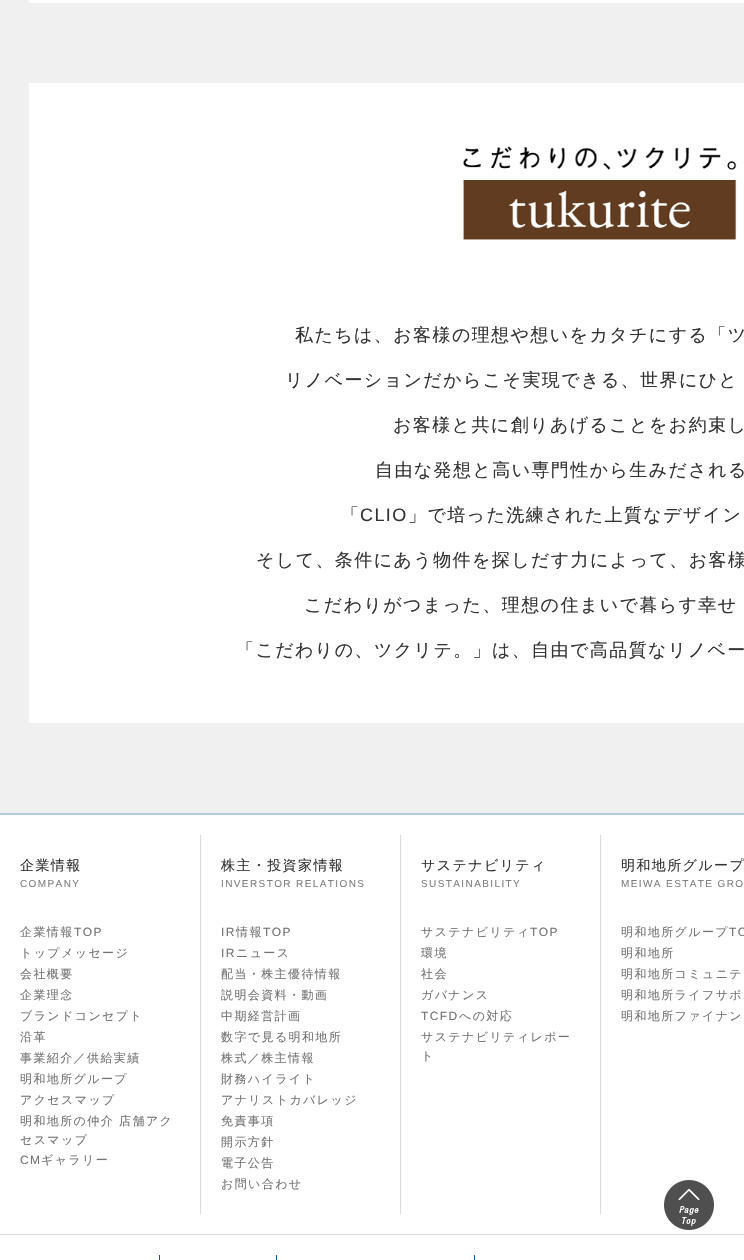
void draw(SkCanvas* c) {
SkPaint p;
p.setAntiAlias(true);
auto F=[&](const char* family, int weight, float size, bool italic = false){SkFontStyle style(weight, SkFontStyle::kNormal_Width,italic ? SkFontStyle::kItalic_Slant : SkFontStyle::kUpright_Slant);SkFont result(fontMgr->matchFamilyStyle(family, style), size);result.setSubpixel(true);return result;};
auto L=[&](const char* s, float x, float y, const SkFont& font, const SkPaint& ink, float letter, float word){std::vector<SkGlyphID> glyphs(font.countText(s, strlen(s), SkTextEncoding::kUTF8));std::vector<float> xs(glyphs.size());font.textToGlyphs(s, strlen(s), SkTextEncoding::kUTF8, glyphs);font.getXPos(glyphs, xs, x);float extra = 0;for (size_t i = 0; i < glyphs.size(); i++) {xs[i] += extra;extra += letter + word * (glyphs[i] == font.unicharToGlyph(' '));}c->drawTextBlob(SkTextBlob::MakeFromPosHGlyphs(glyphs, xs, y, font), 0, 0, ink);};
auto R=[&](float x, float y, float w, float h){c->drawRect(SkRect::MakeXYWH(x, y, w, h), p);};
auto I=[&](const char* path, float x, float y, float w, float h){auto image = SkImages::DeferredFromEncodedData(SkData::MakeFromFileName(path));c->drawImageRect(image, SkRect::MakeXYWH(x, y, w, h), SkSamplingOptions());};
c->clear(0xffffffff);
p.setColor(0xfff0f0f0);
R(0,0,744,813);
p.setColor(0xffffffff);
R(29,0,715,3);
R(29,83,715,640);
I("1.png",463,146,274,94);
auto f1 = F("WenQuanYi Zen Hei",500,18);
p.setColor(0xff333333);
L("私たちは、お客様の理想や想いをカタチにする「ツ",295,341,f1,p,1.4,0);
L("リノベーションだからこそ実現できる、世界にひと",285,386,f1,p,1.4,0);
L("お客様と共に創りあげることをお約束し",393,431,f1,p,1.4,0);
L("自由な発想と高い専門性から生みだされる",375,476,f1,p,1.4,0);
L("「",341,521,f1,p,1.4,0);
auto f2 = F("Liberation Sans",400,18);
L("CLIO",360,521,f2,p,1.4,0);
L("」で培った洗練された上質なデザイン",408,521,f1,p,1.4,0);
L("そして、条件にあう物件を探しだす力によって、お客様",256,566,f1,p,1.4,0);
L("こだわりがつまった、理想の住まいで暮らす幸せ",304,611,f1,p,1.4,0);
L("「こだわりの、ツクリテ。」は、自由で高品質なリノベー",236,656,f1,p,1.4,0);
p.setColor(0xffb2cedd);
R(0,813,744,2);
auto f3 = F("WenQuanYi Zen Hei",500,14);
p.setColor(0xff333333);
L("企業情報",20,870,f3,p,1.4,0);
auto f4 = F("Liberation Sans",400,10);
p.setColor(0xff808080);
L("COMPANY",20,887,f4,p,1.4,0);
auto f5 = F("WenQuanYi Zen Hei",500,12);
p.setColor(0xff737373);
L("企業情報",20,936,f5,p,1.4,0);
auto f6 = F("Liberation Sans",400,12);
L("TOP",74,936,f6,p,1.4,0);
L("トップメッセージ",20,957,f5,p,1.4,0);
L("会社概要",20,978,f5,p,1.4,0);
L("企業理念",20,999,f5,p,1.4,0);
L("ブランドコンセプト",20,1020,f5,p,1.4,0);
L("沿革",20,1041,f5,p,1.4,0);
L("事業紹介／供給実績",20,1062,f5,p,1.4,0);
L("明和地所グループ",20,1083,f5,p,1.4,0);
L("アクセスマップ",20,1104,f5,p,1.4,0);
L("明和地所の仲介 店舗アク",20,1125,f5,p,1.4,0);
L("セスマップ",20,1144,f5,p,1.4,0);
L("CM",20,1164,f6,p,1.4,0);
L("ギャラリー",41,1164,f5,p,1.4,0);
p.setColor(0xffdadad7);
R(200,835,1,379);
p.setColor(0xff333333);
L("株主・投資家情報",221,870,f3,p,1.4,0);
p.setColor(0xff808080);
L("INVERSTOR RELATIONS",221,887,f4,p,1.4,0);
p.setColor(0xff737373);
L("IR",221,936,f6,p,1.4,0);
L("情報",236,936,f5,p,1.4,0);
L("TOP",263,936,f6,p,1.4,0);
L("IR",221,957,f6,p,1.4,0);
L("ニュース",236,957,f5,p,1.4,0);
L("配当・株主優待情報",221,978,f5,p,1.4,0);
L("説明会資料・動画",221,999,f5,p,1.4,0);
L("中期経営計画",221,1020,f5,p,1.4,0);
L("数字で見る明和地所",221,1041,f5,p,1.4,0);
L("株式／株主情報",221,1062,f5,p,1.4,0);
L("財務ハイライト",221,1083,f5,p,1.4,0);
L("アナリストカバレッジ",221,1104,f5,p,1.4,0);
L("免責事項",221,1125,f5,p,1.4,0);
L("開示方針",221,1146,f5,p,1.4,0);
L("電子公告",221,1167,f5,p,1.4,0);
L("お問い合わせ",221,1188,f5,p,1.4,0);
p.setColor(0xffdadad7);
R(400,835,1,379);
p.setColor(0xff333333);
L("サステナビリティ",421,870,f3,p,1.4,0);
p.setColor(0xff808080);
L("SUSTAINABILITY",421,887,f4,p,1.4,0);
p.setColor(0xff737373);
L("サステナビリティ",421,936,f5,p,1.4,0);
L("TOP",530,936,f6,p,1.4,0);
L("環境",421,957,f5,p,1.4,0);
L("社会",421,978,f5,p,1.4,0);
L("ガバナンス",421,999,f5,p,1.4,0);
L("TCFD",421,1020,f6,p,1.4,0);
L("への対応",459,1020,f5,p,1.4,0);
L("サステナビリティレポー",421,1041,f5,p,1.4,0);
L("ト",421,1060,f5,p,1.4,0);
p.setColor(0xffdadad7);
R(600,835,1,379);
p.setColor(0xff333333);
L("明和地所グループ",621,870,f3,p,1.4,0);
p.setColor(0xff808080);
L("MEIWA ESTATE GRO",621,887,f4,p,1.4,0);
p.setColor(0xff737373);
L("明和地所グループ",621,936,f5,p,1.4,0);
L("TO",729,936,f6,p,1.4,0);
L("明和地所",621,957,f5,p,1.4,0);
L("明和地所コミュニテ",621,978,f5,p,1.4,0);
L("明和地所ライフサポ",621,999,f5,p,1.4,0);
L("明和地所ファイナン",621,1020,f5,p,1.4,0);
p.setColor(0xffdadad7);
R(0,1234,744,1);
p.setColor(0xff005d8e);
R(159,1255,1,5);
R(276,1255,1,5);
R(474,1255,1,5);
I("2.png",664,1180,50,50);
}
